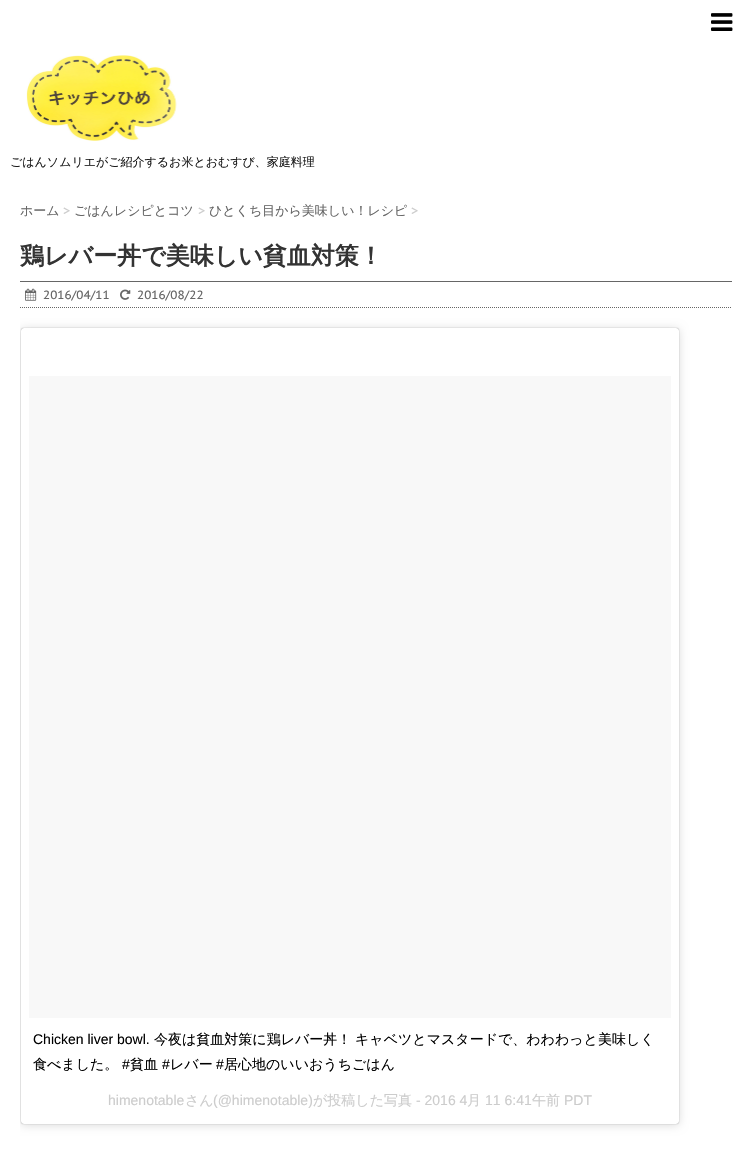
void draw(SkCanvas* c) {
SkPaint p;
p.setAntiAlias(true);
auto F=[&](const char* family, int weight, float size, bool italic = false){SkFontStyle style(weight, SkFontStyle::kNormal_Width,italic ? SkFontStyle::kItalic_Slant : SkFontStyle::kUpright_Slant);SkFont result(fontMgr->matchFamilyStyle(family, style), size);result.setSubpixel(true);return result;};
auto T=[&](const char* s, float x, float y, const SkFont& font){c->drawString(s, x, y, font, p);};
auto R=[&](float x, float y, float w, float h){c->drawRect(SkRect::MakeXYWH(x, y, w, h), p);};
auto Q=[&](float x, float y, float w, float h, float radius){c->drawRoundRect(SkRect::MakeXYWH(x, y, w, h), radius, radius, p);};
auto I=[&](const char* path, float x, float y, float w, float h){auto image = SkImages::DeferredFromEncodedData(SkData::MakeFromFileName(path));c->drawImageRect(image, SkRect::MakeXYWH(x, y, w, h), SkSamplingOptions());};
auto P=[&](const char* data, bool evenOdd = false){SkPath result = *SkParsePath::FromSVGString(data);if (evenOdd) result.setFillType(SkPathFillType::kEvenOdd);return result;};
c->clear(0xffffffff);
I("1.png",711,13,22,18);
I("2.png",26,55,151,86);
auto f1 = F("WenQuanYi Zen Hei",500,12);
p.setColor(0xff1a1a1a);
T("ごはんソムリエがご紹介するお米とおむすび、家庭料理",10,166,f1);
auto f2 = F("WenQuanYi Zen Hei",500,13);
p.setColor(0xff666666);
T("ホーム",20,215,f2);
auto f3 = F("PT Sans Caption",400,13);
p.setColor(0xffcccccc);
T(">",63,215,f3);
p.setColor(0xff666666);
T("ごはんレシピとコツ",74,215,f2);
p.setColor(0xffcccccc);
T(">",198,215,f3);
p.setColor(0xff666666);
T("ひとくち目から美味しい！レシピ",209,215,f2);
p.setColor(0xffcccccc);
T(">",411,215,f3);
auto f4 = F("WenQuanYi Zen Hei",700,24);
p.setColor(0xff333333);
T("鶏レバー丼で美味しい貧血対策！",20,264,f4);
p.setColor(0xff666666);
R(20,281,712,1);
p.setStroke(true);
p.setStrokeWidth(1);
p.setPathEffect(SkDashPathEffect::Make({{1,1}}, 0));
c->drawPath(P("M20 307.5h712"),p);
p.setPathEffect(nullptr);
I("3.png",25,288,12,13);
auto f5 = F("PT Sans Caption",400,12);
p.setStroke(false);
T("2016/04/11",43,299,f5);
I("4.png",120,289,11,11);
T("2016/08/22",137,299,f5);
c->save();
c->clipRect(SkRect::MakeXYWH(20,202,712,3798));
p.setColor(0x26000000);
p.setMaskFilter(SkMaskFilter::MakeBlur(kNormal_SkBlurStyle, 5));
c->drawRoundRect(SkRect::MakeXYWH(21,329,658,796),3,3,p);
p.setMaskFilter(nullptr);
c->restore();
p.setColor(0x80000000);
p.setMaskFilter(SkMaskFilter::MakeBlur(kNormal_SkBlurStyle, .5));
c->drawRoundRect(SkRect::MakeXYWH(21,328,658,796),3,3,p);
p.setMaskFilter(nullptr);
p.setColor(0xffffffff);
Q(21,328,658,796,3);
p.setColor(0xfff8f8f8);
R(29,376,642,642);
auto f6 = F("Liberation Sans",400,14);
p.setColor(0xff000000);
T("Chicken liver bowl.",33,1044,f6);
auto f7 = F("WenQuanYi Zen Hei",500,14);
T("今夜は貧血対策に鶏レバー丼！",154,1044,f7);
T("キャベツとマスタードで、わわわっと美味しく",355,1044,f7);
T("食べました。",33,1069,f7);
T("#",122,1069,f6);
T("貧血",130,1069,f7);
T("#",162,1069,f6);
T("レバー",170,1069,f7);
T("#",216,1069,f6);
T("居心地のいいおうちごはん",224,1069,f7);
p.setColor(0xffcccccc);
T("himenotable",108,1105,f6);
T("さん",185,1105,f7);
T("(@himenotable)",213,1105,f6);
T("が投稿した写真",313,1105,f7);
T("- 2016 4",416,1105,f6);
T("月",467,1105,f7);
T("11 6:41",485,1105,f6);
T("午前",532,1105,f7);
T("PDT",564,1105,f6);
}
